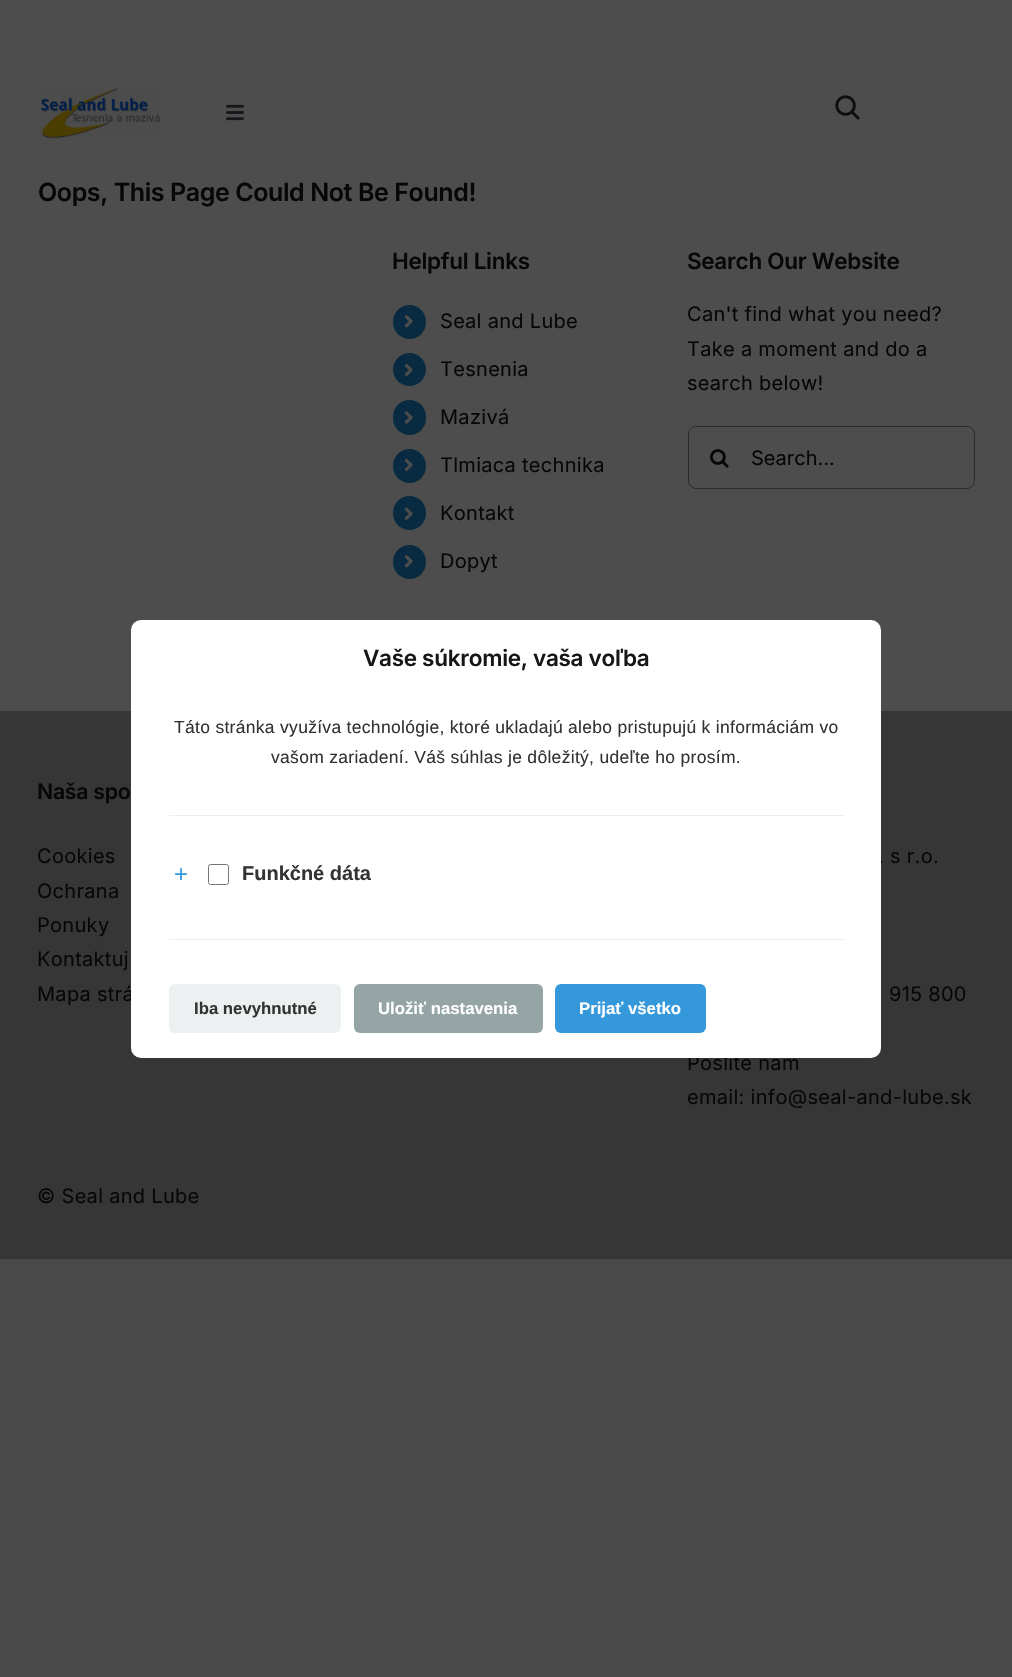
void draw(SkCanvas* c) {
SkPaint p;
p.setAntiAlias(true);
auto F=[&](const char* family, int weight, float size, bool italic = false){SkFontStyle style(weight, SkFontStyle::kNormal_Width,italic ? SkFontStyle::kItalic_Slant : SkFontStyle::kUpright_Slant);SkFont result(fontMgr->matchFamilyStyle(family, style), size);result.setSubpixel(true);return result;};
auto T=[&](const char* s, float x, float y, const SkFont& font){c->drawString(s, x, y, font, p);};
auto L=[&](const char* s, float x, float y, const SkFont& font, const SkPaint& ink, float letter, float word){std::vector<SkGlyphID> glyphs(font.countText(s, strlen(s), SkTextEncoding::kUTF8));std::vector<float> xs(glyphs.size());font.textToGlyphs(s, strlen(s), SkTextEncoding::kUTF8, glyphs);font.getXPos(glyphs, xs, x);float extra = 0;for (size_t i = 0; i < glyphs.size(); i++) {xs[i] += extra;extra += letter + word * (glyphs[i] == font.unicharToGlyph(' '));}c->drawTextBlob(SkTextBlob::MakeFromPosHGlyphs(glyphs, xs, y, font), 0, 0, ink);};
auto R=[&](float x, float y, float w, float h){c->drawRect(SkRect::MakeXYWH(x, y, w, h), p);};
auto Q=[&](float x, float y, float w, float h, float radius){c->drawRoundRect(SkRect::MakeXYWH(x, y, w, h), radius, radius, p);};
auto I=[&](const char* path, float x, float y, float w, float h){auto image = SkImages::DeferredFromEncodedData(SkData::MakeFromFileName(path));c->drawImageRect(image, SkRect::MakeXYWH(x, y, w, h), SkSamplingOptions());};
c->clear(0xff49494a);
p.setColor(0xff4d4d4d);
R(0,0,1012,711);
I("1.png",38,86,124,53);
I("2.png",226,104,18,17);
I("3.png",835,95,25,25);
auto f1 = F("Inter",600,25);
p.setColor(0xff060707);
L("Oops, This Page Could Not Be Found!",38,201,f1,p,-.4,0);
auto f2 = F("Inter",600,22.5);
L("Helpful Links",392,269,f2,p,-.3,0);
p.setColor(0xff082b41);
Q(393,305,33,34,16.5);
I("4.png",404,315,9,13);
auto f3 = F("Inter",400,20);
p.setColor(0xff060707);
L("Seal and Lube",440,328,f3,p,.3,0);
p.setColor(0xff082b41);
c->drawCircle(409.5,369.5,16.5,p);
I("5.png",404,363,9,14);
p.setColor(0xff060707);
L("Tesnenia",440,376,f3,p,.3,0);
p.setColor(0xff082b41);
Q(393,400,33,35,16.5);
I("6.png",404,411,9,13);
p.setColor(0xff060707);
L("Mazivá",440,424,f3,p,.3,0);
p.setColor(0xff082b41);
Q(393,449,33,34,16.5);
I("5.png",404,458,9,14);
p.setColor(0xff060707);
L("Tlmiaca technika",440,472,f3,p,.3,0);
p.setColor(0xff082b41);
Q(393,496,33,34,16.5);
I("7.png",404,507,9,13);
p.setColor(0xff060707);
L("Kontakt",440,520,f3,p,.3,0);
p.setColor(0xff082b41);
Q(393,545,33,34,16.5);
I("4.png",404,555,9,13);
p.setColor(0xff060707);
L("Dopyt",440,568,f3,p,.3,0);
L("Search Our Website",687,269,f2,p,-.3,0);
L("Can't find what you need?",687,321,f3,p,.3,0);
L("Take a moment and do a",687,356,f3,p,.3,0);
L("search below!",687,390,f3,p,.3,0);
p.setStroke(true);
p.setStrokeWidth(1);
p.setColor(0xff2c2c2c);
c->drawRoundRect(SkRect::MakeXYWH(688.5,426.5,286,62),7.5,7.5,p);
I("8.png",710,449,19,19);
p.setStroke(false);
p.setColor(0xff060707);
T("Search...",751,465,f3);
p.setColor(0xff363636);
R(0,711,1012,548);
auto f4 = F("Inter",600,21.25);
p.setColor(0xff060707);
L("Naša spo",37,799,f4,p,-.25,0);
L("Cookies",37,863,f3,p,.3,0);
L("Ochrana",37,898,f3,p,.3,0);
L("Ponuky",37,932,f3,p,.3,0);
L("Kontaktuj",37,966,f3,p,.3,0);
L("Mapa strá",37,1001,f3,p,.3,0);
L(". s r.o.",878,863,f3,p,.3,0);
L("915 800",889,1001,f3,p,.3,0);
L("Pošlite nám",687,1070,f3,p,.3,0);
L("email: info@seal-and-lube.sk",687,1104,f3,p,.3,0);
L("© Seal and Lube",37,1203,f3,p,.3,0);
p.setColor(0xffffffff);
Q(131,620,750,438,10);
p.setColor(0xff141617);
L("Vaše súkromie, vaša voľba",363,666,f2,p,-.3,0);
auto f5 = F("Liberation Sans",400,17.5);
p.setColor(0xff333333);
L("Táto stránka využíva technológie, ktoré ukladajú alebo pristupujú k informáciám vo",174,733,f5,p,.3,0);
L("vašom zariadení. Váš súhlas je dôležitý, udeľte ho prosím.",271,763,f5,p,.3,0);
p.setColor(0xffeeeeee);
R(169,815,675,1);
auto f6 = F("Liberation Sans",400,24);
p.setColor(0xff3498db);
T("+",174,882,f6);
p.setStroke(true);
p.setColor(0xff767676);
c->drawRoundRect(SkRect::MakeXYWH(208.5,864.5,20,20),2,2,p);
auto f7 = F("Liberation Sans",700,20);
p.setStroke(false);
p.setColor(0xff333333);
T("Funkčné dáta",242,880,f7);
p.setColor(0xffeeeeee);
R(169,939,675,1);
p.setColor(0xffecf0f1);
Q(169,984,172,49,6);
auto f8 = F("Liberation Sans",700,16.75);
p.setColor(0xff333333);
T("Iba nevyhnutné",194,1014,f8);
p.setColor(0xff95a5a6);
Q(354,984,189,49,6);
p.setColor(0xffffffff);
T("Uložiť nastavenia",378,1014,f8);
p.setColor(0xff3498db);
Q(555,984,151,49,6);
p.setColor(0xffffffff);
T("Prijať všetko",579,1014,f8);
}
